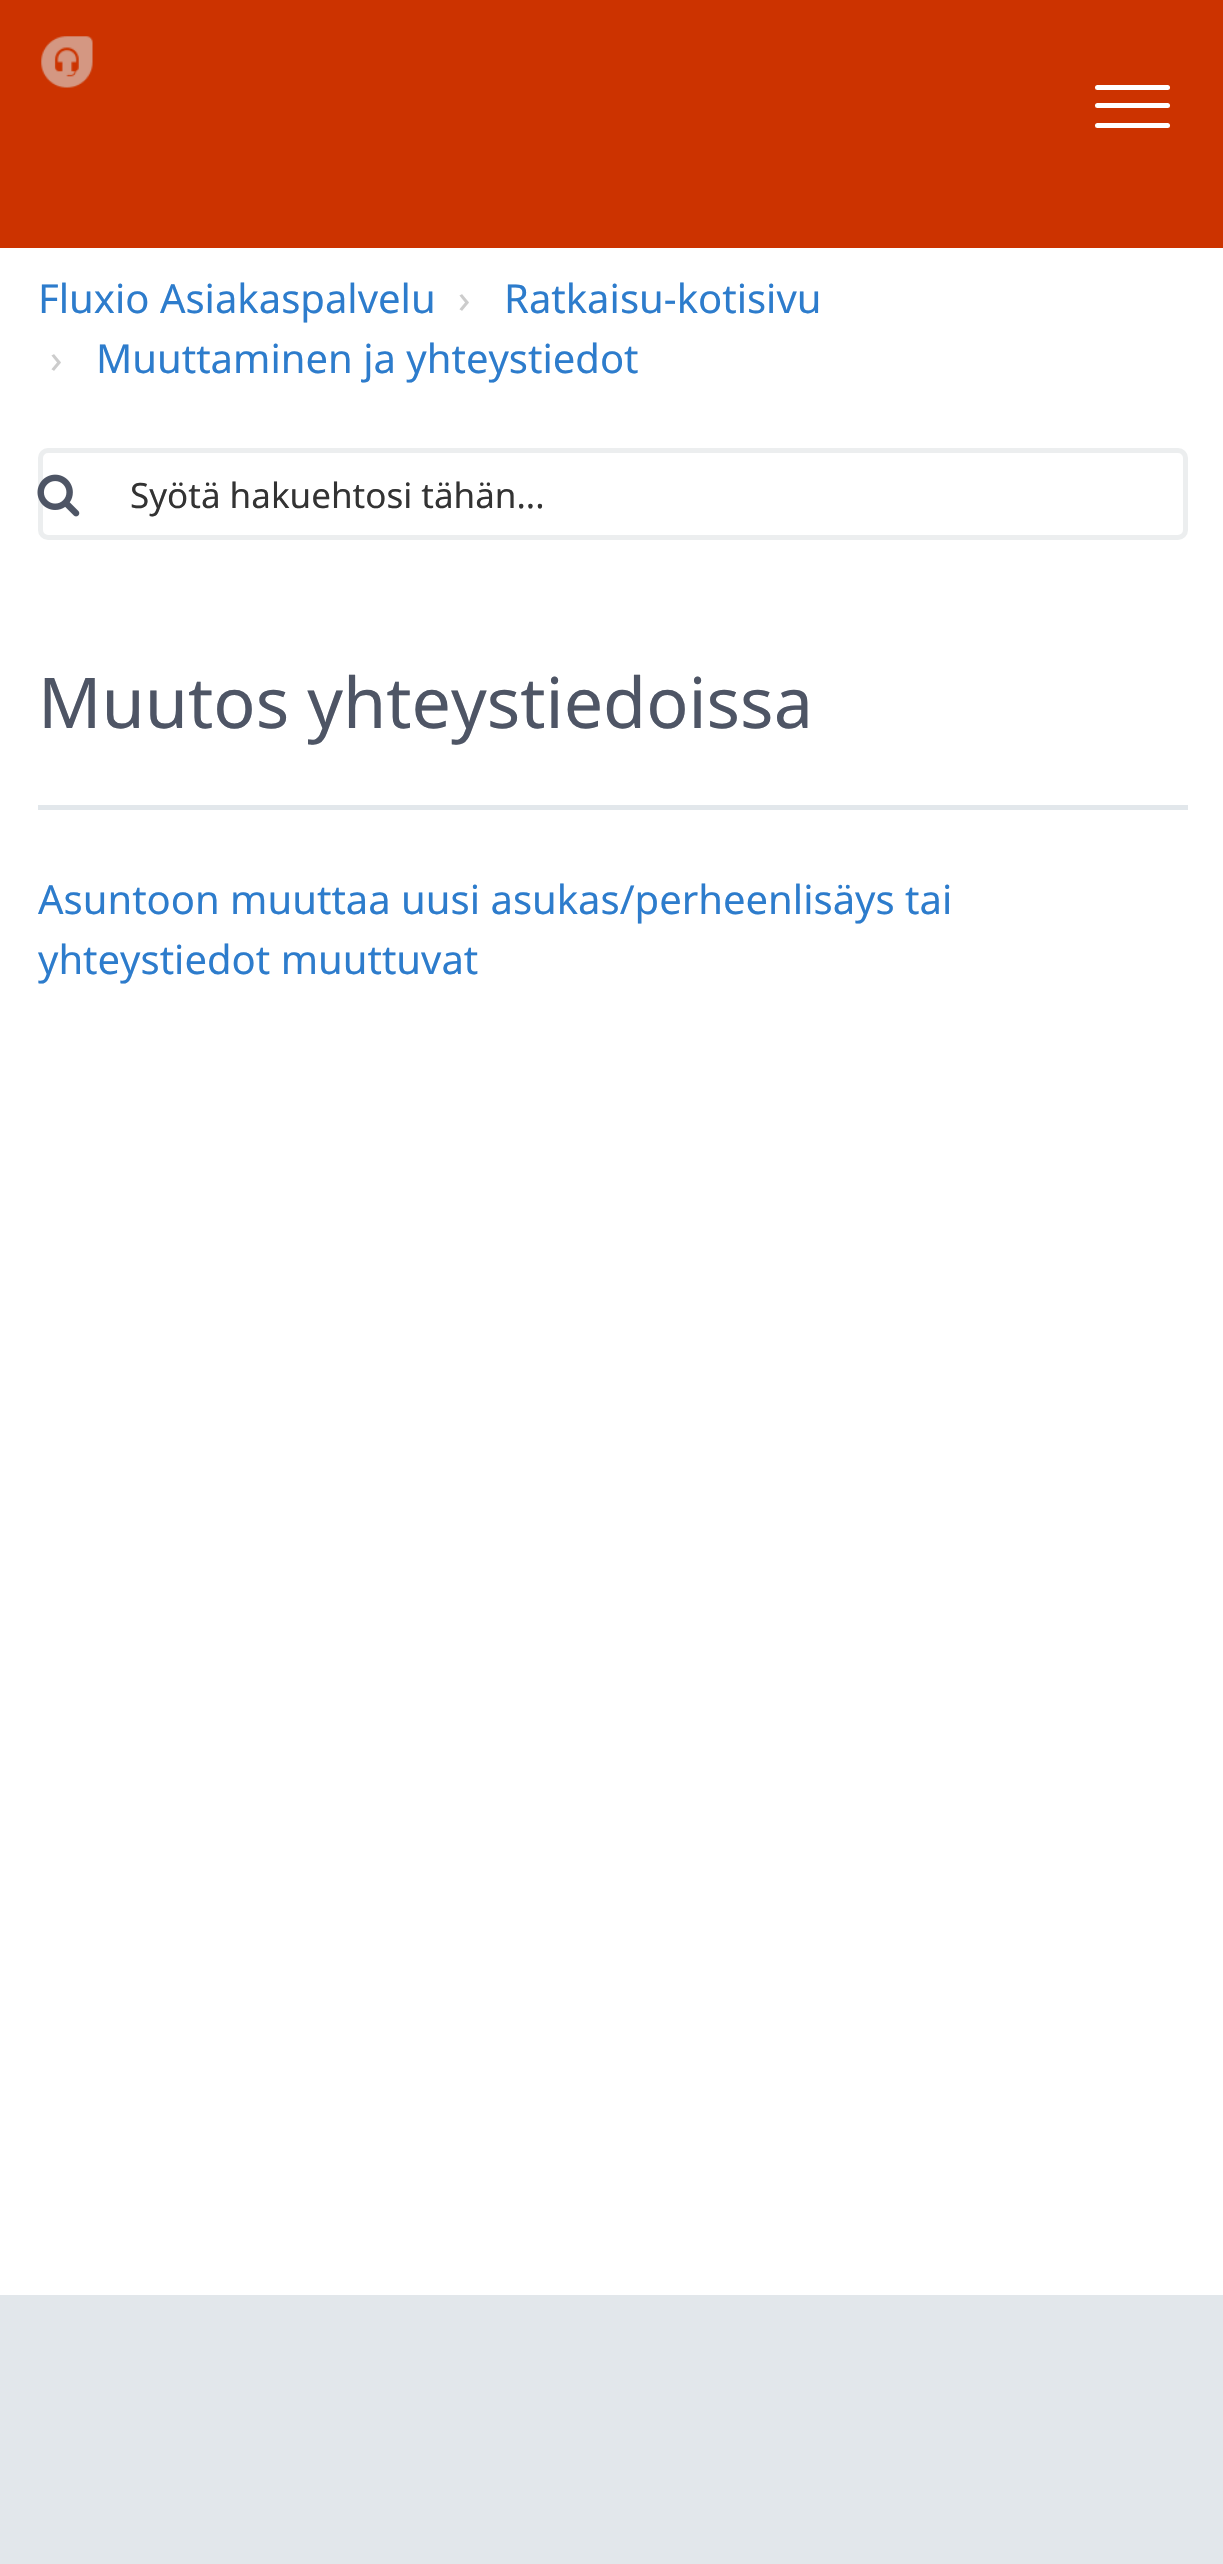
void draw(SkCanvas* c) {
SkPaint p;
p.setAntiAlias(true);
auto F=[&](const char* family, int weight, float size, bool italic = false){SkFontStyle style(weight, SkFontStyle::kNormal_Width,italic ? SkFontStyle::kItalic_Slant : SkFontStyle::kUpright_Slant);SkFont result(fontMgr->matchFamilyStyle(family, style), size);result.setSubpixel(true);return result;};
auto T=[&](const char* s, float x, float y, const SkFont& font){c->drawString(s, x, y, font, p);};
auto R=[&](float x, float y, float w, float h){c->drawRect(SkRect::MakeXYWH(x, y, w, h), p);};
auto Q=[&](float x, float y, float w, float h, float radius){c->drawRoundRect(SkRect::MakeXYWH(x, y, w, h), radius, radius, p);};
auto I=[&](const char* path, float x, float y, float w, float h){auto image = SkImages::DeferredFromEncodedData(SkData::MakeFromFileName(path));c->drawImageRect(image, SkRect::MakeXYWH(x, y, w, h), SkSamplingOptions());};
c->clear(0xffffffff);
p.setColor(0xffcc3300);
R(0,0,1223,248);
I("1.png",41,36,52,52);
p.setColor(0xffffffff);
Q(1095,103,75,5,2.5);
Q(1095,85,75,5,2.5);
Q(1095,123,75,5,2.5);
auto f1 = F("Noto Sans",400,40);
p.setColor(0xff2d7ccc);
T("Fluxio Asiakaspalvelu",38,313,f1);
p.setColor(0xffcccccc);
T("›",458,313,f1);
p.setColor(0xff2d7ccc);
T("Ratkaisu-kotisivu",504,313,f1);
p.setColor(0xffcccccc);
T("›",50,373,f1);
p.setColor(0xff2d7ccc);
T("Muuttaminen ja yhteystiedot",96,373,f1);
p.setStroke(true);
p.setStrokeWidth(5);
p.setColor(0xffeceeef);
c->drawRoundRect(SkRect::MakeXYWH(40.5,450.5,1145,87),7.5,7.5,p);
I("2.png",37,474,43,43);
auto f2 = F("Noto Sans",400,35);
p.setStroke(false);
p.setColor(0xff333333);
T("Syötä hakuehtosi tähän...",130,508,f2);
p.setColor(0xffe2e7eb);
R(38,805,1150,5);
auto f3 = F("Noto Sans",400,70);
p.setColor(0xff4e5565);
T("Muutos yhteystiedoissa",38,728,f3);
p.setColor(0xff2d7ccc);
T("Asuntoon muuttaa uusi asukas/perheenlisäys tai",38,914,f1);
T("yhteystiedot muuttuvat",38,974,f1);
p.setColor(0xffe2e7eb);
R(0,2295,1223,269);
}
